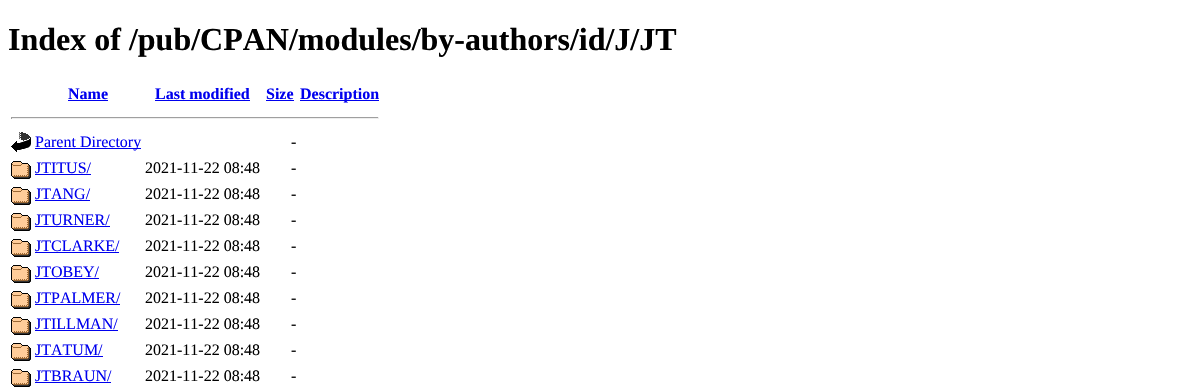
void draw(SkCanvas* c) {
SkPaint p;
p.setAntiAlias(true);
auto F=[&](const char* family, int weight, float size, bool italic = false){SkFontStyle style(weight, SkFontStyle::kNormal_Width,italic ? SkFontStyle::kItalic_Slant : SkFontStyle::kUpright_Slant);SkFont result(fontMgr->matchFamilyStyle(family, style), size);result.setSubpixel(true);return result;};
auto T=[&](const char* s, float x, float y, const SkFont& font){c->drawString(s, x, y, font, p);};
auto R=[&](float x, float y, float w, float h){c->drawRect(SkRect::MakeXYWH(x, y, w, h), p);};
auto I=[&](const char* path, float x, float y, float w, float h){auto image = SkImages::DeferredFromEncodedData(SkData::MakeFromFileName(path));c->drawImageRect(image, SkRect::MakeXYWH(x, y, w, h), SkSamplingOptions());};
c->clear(0xffffffff);
auto f1 = F("Liberation Serif",700,32);
p.setColor(0xff000000);
T("Index of /pub/CPAN/modules/by-authors/id/J/JT",8,50,f1);
auto f2 = F("Liberation Serif",700,16);
p.setColor(0xff0000ee);
T("Name",68,99,f2);
R(68,100,40,1);
T("Last modified",155,99,f2);
R(155,100,95,1);
T("Size",266,99,f2);
R(266,100,28,1);
R(300,100,79,1);
T("Description",300,99,f2);
p.setColor(0xff9f9f9f);
R(11,117,368,1);
p.setColor(0xffeeeeee);
R(378,117,1,2);
R(11,118,368,1);
p.setColor(0xff9f9f9f);
R(11,117,1,2);
I("1.png",11,132,20,20);
p.setColor(0xff0000ee);
R(35,148,106,1);
auto f3 = F("Liberation Serif",400,16);
T("Parent Directory",35,147,f3);
p.setColor(0xff000000);
T("-",291,147,f3);
I("2.png",11,161,20,18);
p.setColor(0xff0000ee);
T("JTITUS/",35,173,f3);
R(35,174,56,1);
p.setColor(0xff000000);
T("2021-11-22 08:48",145,173,f3);
T("-",291,173,f3);
I("2.png",11,187,20,18);
p.setColor(0xff0000ee);
T("JTANG/",35,199,f3);
R(35,200,55,1);
p.setColor(0xff000000);
T("2021-11-22 08:48",145,199,f3);
T("-",291,199,f3);
I("2.png",11,213,20,18);
p.setColor(0xff0000ee);
T("JTURNER/",35,225,f3);
R(35,226,75,1);
p.setColor(0xff000000);
T("2021-11-22 08:48",145,225,f3);
T("-",291,225,f3);
I("2.png",11,239,20,18);
p.setColor(0xff0000ee);
T("JTCLARKE/",35,251,f3);
R(35,252,84,1);
p.setColor(0xff000000);
T("2021-11-22 08:48",145,251,f3);
T("-",291,251,f3);
I("2.png",11,265,20,18);
p.setColor(0xff0000ee);
T("JTOBEY/",35,277,f3);
R(35,278,64,1);
p.setColor(0xff000000);
T("2021-11-22 08:48",145,277,f3);
T("-",291,277,f3);
I("2.png",11,291,20,18);
p.setColor(0xff0000ee);
T("JTPALMER/",35,303,f3);
R(35,304,85,1);
p.setColor(0xff000000);
T("2021-11-22 08:48",145,303,f3);
T("-",291,303,f3);
I("2.png",11,317,20,18);
p.setColor(0xff0000ee);
T("JTILLMAN/",35,329,f3);
R(35,330,83,1);
p.setColor(0xff000000);
T("2021-11-22 08:48",145,329,f3);
T("-",291,329,f3);
I("2.png",11,343,20,18);
p.setColor(0xff0000ee);
T("JTATUM/",35,355,f3);
R(35,356,68,1);
p.setColor(0xff000000);
T("2021-11-22 08:48",145,355,f3);
T("-",291,355,f3);
I("2.png",11,369,20,18);
p.setColor(0xff0000ee);
T("JTBRAUN/",35,381,f3);
R(35,382,76,1);
p.setColor(0xff000000);
T("2021-11-22 08:48",145,381,f3);
T("-",291,381,f3);
}
